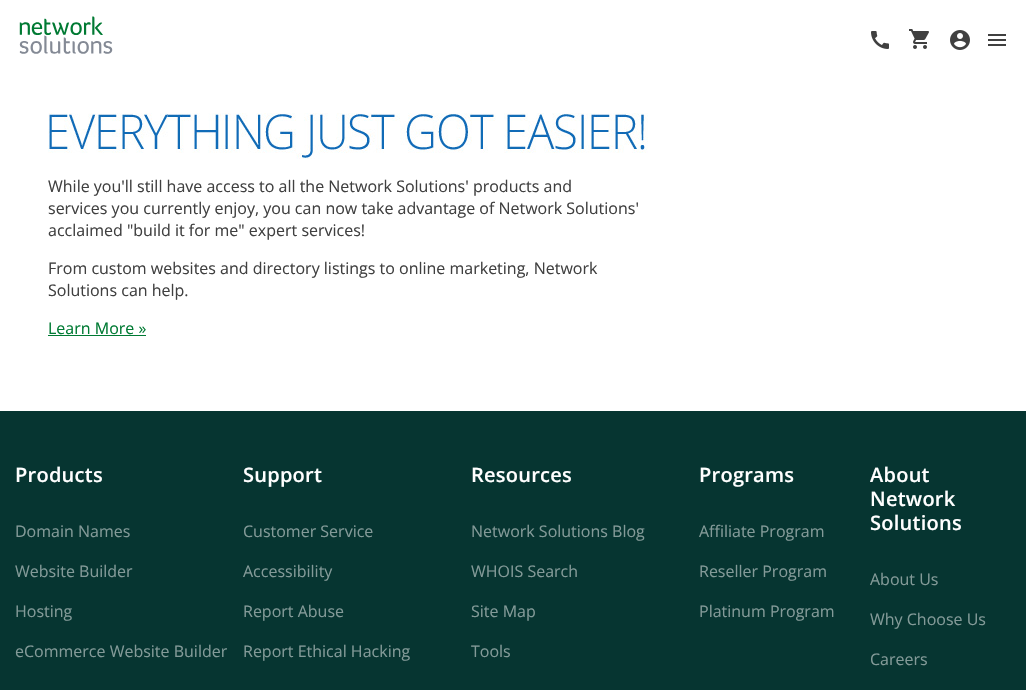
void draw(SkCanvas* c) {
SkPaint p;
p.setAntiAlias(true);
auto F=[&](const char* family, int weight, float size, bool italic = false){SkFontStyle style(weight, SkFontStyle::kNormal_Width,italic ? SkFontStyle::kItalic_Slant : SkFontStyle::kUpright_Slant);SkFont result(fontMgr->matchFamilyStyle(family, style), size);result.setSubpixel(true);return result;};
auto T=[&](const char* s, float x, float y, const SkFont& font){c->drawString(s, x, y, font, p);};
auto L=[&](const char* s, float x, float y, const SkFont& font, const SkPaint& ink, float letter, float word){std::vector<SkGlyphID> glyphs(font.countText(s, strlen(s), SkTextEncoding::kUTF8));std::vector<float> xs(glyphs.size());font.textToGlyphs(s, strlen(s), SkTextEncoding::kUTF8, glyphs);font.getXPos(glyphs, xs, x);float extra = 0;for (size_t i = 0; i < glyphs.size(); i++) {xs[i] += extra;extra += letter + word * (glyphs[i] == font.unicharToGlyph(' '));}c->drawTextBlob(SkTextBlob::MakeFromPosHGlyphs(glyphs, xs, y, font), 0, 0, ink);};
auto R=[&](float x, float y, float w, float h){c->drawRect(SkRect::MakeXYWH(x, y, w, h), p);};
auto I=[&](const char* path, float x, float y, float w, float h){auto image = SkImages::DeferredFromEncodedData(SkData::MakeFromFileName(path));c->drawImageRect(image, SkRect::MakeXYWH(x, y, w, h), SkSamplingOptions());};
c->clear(0xffffffff);
I("1.png",19,16,94,38);
I("2.png",871,31,18,18);
I("3.png",909,29,20,20);
I("4.png",950,30,20,20);
I("5.png",988,34,18,12);
I("6.png",48,113,600,46);
auto f1 = F("Open Sans",400,16);
p.setColor(0xff404040);
T("While you'll still have access to all the Network Solutions' products and",48,192,f1);
T("services you currently enjoy, you can now take advantage of Network Solutions'",48,214,f1);
T("acclaimed \"build it for me\" expert services!",48,236,f1);
T("From custom websites and directory listings to online marketing, Network",48,274,f1);
T("Solutions can help.",48,296,f1);
p.setColor(0xff007a33);
T("Learn More »",48,334,f1);
R(48,335,98,1);
p.setColor(0xff063531);
R(0,411,1026,279);
auto f2 = F("Open Sans",600,20);
p.setColor(0xffffffff);
L("Products",15,482,f2,p,.25,0);
p.setColor(0xff839a98);
T("Domain Names",15,537,f1);
T("Website Builder",15,577,f1);
T("Hosting",15,617,f1);
T("eCommerce Website Builder",15,657,f1);
p.setColor(0xffffffff);
L("Support",243,482,f2,p,.25,0);
p.setColor(0xff839a98);
T("Customer Service",243,537,f1);
T("Accessibility",243,577,f1);
T("Report Abuse",243,617,f1);
T("Report Ethical Hacking",243,657,f1);
p.setColor(0xffffffff);
L("Resources",471,482,f2,p,.25,0);
p.setColor(0xff839a98);
T("Network Solutions Blog",471,537,f1);
T("WHOIS Search",471,577,f1);
T("Site Map",471,617,f1);
T("Tools",471,657,f1);
p.setColor(0xffffffff);
L("Programs",699,482,f2,p,.25,0);
p.setColor(0xff839a98);
T("Affiliate Program",699,537,f1);
T("Reseller Program",699,577,f1);
T("Platinum Program",699,617,f1);
p.setColor(0xffffffff);
L("About",870,482,f2,p,.25,0);
L("Network",870,506,f2,p,.25,0);
L("Solutions",870,530,f2,p,.25,0);
p.setColor(0xff839a98);
T("About Us",870,585,f1);
T("Why Choose Us",870,625,f1);
T("Careers",870,665,f1);
}
